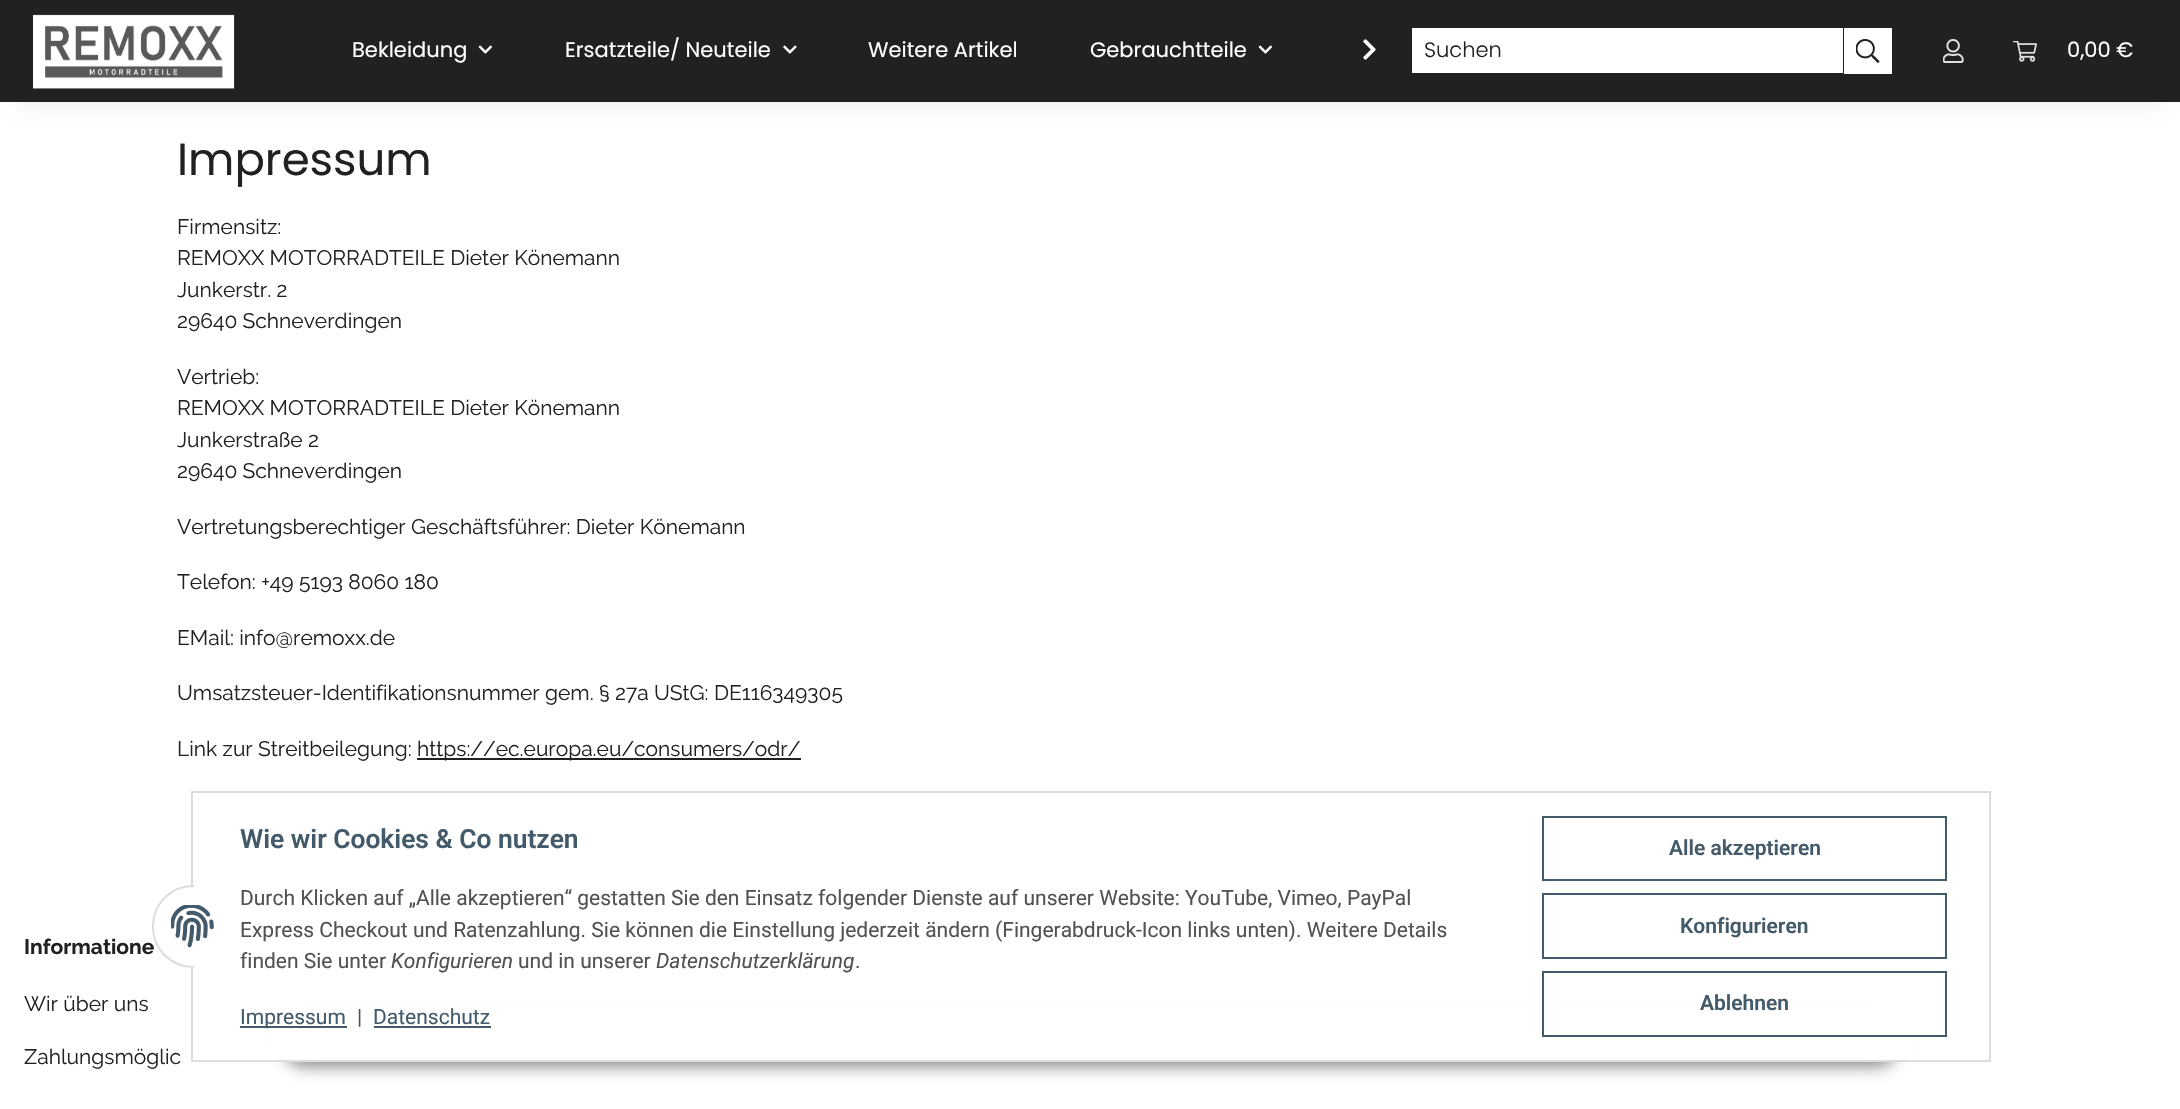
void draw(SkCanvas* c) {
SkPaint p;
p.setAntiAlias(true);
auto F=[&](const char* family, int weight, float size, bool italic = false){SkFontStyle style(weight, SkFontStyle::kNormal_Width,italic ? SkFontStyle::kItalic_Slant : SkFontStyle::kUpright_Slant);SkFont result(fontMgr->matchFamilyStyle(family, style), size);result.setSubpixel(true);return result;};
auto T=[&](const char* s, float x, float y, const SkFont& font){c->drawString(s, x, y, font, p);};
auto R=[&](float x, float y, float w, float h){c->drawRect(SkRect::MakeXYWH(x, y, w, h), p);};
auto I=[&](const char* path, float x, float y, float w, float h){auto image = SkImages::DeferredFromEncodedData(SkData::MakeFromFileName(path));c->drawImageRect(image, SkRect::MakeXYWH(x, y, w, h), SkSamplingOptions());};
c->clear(0xffffffff);
p.setColor(0x0f000000);
p.setMaskFilter(SkMaskFilter::MakeBlur(kNormal_SkBlurStyle, 7));
c->drawRect(SkRect::MakeXYWH(18,42,2145,66),p);
p.setMaskFilter(nullptr);
p.setColor(0xff212121);
R(0,0,2180,102);
I("1.png",33,14,202,75);
auto f1 = F("Poppins",400,21);
p.setColor(0xffffffff);
T("Bekleidung",352,57,f1);
I("2.png",478,45,14,9);
T("Ersatzteile/ Neuteile",565,57,f1);
I("3.png",783,45,14,9);
T("Weitere Artikel",868,57,f1);
T("Gebrauchtteile",1090,57,f1);
I("2.png",1258,45,14,9);
I("4.png",1363,39,13,21);
R(1412,28,431,45);
auto f2 = F("Poppins",300,21);
p.setColor(0xff212121);
T("Suchen",1424,57,f2);
p.setColor(0xffffffff);
R(1844,28,48,46);
I("5.png",1856,39,24,24);
I("6.png",1943,39,21,24);
I("7.png",2013,41,24,21);
T("0,00 €",2067,57,f1);
auto f3 = F("Poppins",400,45);
p.setColor(0xff212121);
T("Impressum",177,175,f3);
auto f4 = F("Raleway",400,21);
T("Firmensitz:",177,234,f4);
T("REMOXX MOTORRADTEILE Dieter Könemann",177,265,f4);
T("Junkerstr. 2",177,297,f4);
T("29640 Schneverdingen",177,328,f4);
T("Vertrieb:",177,384,f4);
T("REMOXX MOTORRADTEILE Dieter Könemann",177,415,f4);
T("Junkerstraße 2",177,447,f4);
T("29640 Schneverdingen",177,478,f4);
T("Vertretungsberechtiger Geschäftsführer: Dieter Könemann",177,534,f4);
T("Telefon: +49 5193 8060 180",177,589,f4);
T("EMail: info@remoxx.de",177,645,f4);
T("Umsatzsteuer-Identifikationsnummer gem. § 27a UStG: DE116349305",177,700,f4);
T("Link zur Streitbeilegung:",177,756,f4);
R(417,758,384,2);
T("https://ec.europa.eu/consumers/odr/",417,756,f4);
auto f5 = F("Raleway",700,21);
T("Informatione",24,954,f5);
T("Wir über uns",24,1011,f4);
T("Zahlungsmöglic",24,1064,f4);
p.setColor(0x73000000);
p.setMaskFilter(SkMaskFilter::MakeBlur(kNormal_SkBlurStyle, 7.5));
c->drawRoundRect(SkRect::MakeXYWH(282,1019,1617,48),24,24,p);
p.setMaskFilter(nullptr);
p.setColor(0xffffffff);
R(268,1004,1645,56);
p.setStroke(true);
p.setStrokeWidth(2);
p.setColor(0xffdddddd);
c->drawRect(SkRect::MakeXYWH(192,792,1798,269),p);
p.setStroke(false);
p.setColor(0xffffffff);
c->drawRoundRect(SkRect::MakeXYWH(153,886,80,81),40,40,p);
p.setStroke(true);
p.setColor(0xffdddddd);
c->drawRoundRect(SkRect::MakeXYWH(153,886,80,81),40,40,p);
p.setStroke(false);
p.setColor(0xffffffff);
R(194,885,40,83);
I("8.png",171,905,43,43);
auto f6 = F("Roboto",600,26.4);
p.setColor(0xff435a6b);
T("Wie wir Cookies & Co nutzen",240,848,f6);
auto f7 = F("Roboto",400,21);
p.setColor(0xff525252);
T("Durch Klicken auf „Alle akzeptieren“ gestatten Sie den Einsatz folgender Dienste auf unserer Website: YouTube, Vimeo, PayPal",240,905,f7);
T("Express Checkout und Ratenzahlung. Sie können die Einstellung jederzeit ändern (Fingerabdruck-Icon links unten). Weitere Details",240,937,f7);
T("finden Sie unter",240,968,f7);
auto f8 = F("Roboto",400,21,true);
T("Konfigurieren",391,968,f8);
T("und in unserer",518,968,f7);
T("Datenschutzerklärung",656,968,f8);
T(".",855,968,f7);
p.setColor(0xff435a6b);
R(240,1026,107,2);
T("Impressum",240,1024,f7);
p.setColor(0xff525252);
T("|",357,1024,f7);
p.setColor(0xff435a6b);
T("Datenschutz",373,1024,f7);
R(374,1026,117,2);
p.setStroke(true);
c->drawRect(SkRect::MakeXYWH(1543,817,403,63),p);
auto f9 = F("Roboto",600,21);
p.setStroke(false);
T("Alle akzeptieren",1669,855,f9);
p.setStroke(true);
c->drawRect(SkRect::MakeXYWH(1543,894,403,64),p);
p.setStroke(false);
T("Konfigurieren",1680,933,f9);
p.setStroke(true);
c->drawRect(SkRect::MakeXYWH(1543,972,403,64),p);
p.setStroke(false);
T("Ablehnen",1700,1010,f9);
}
